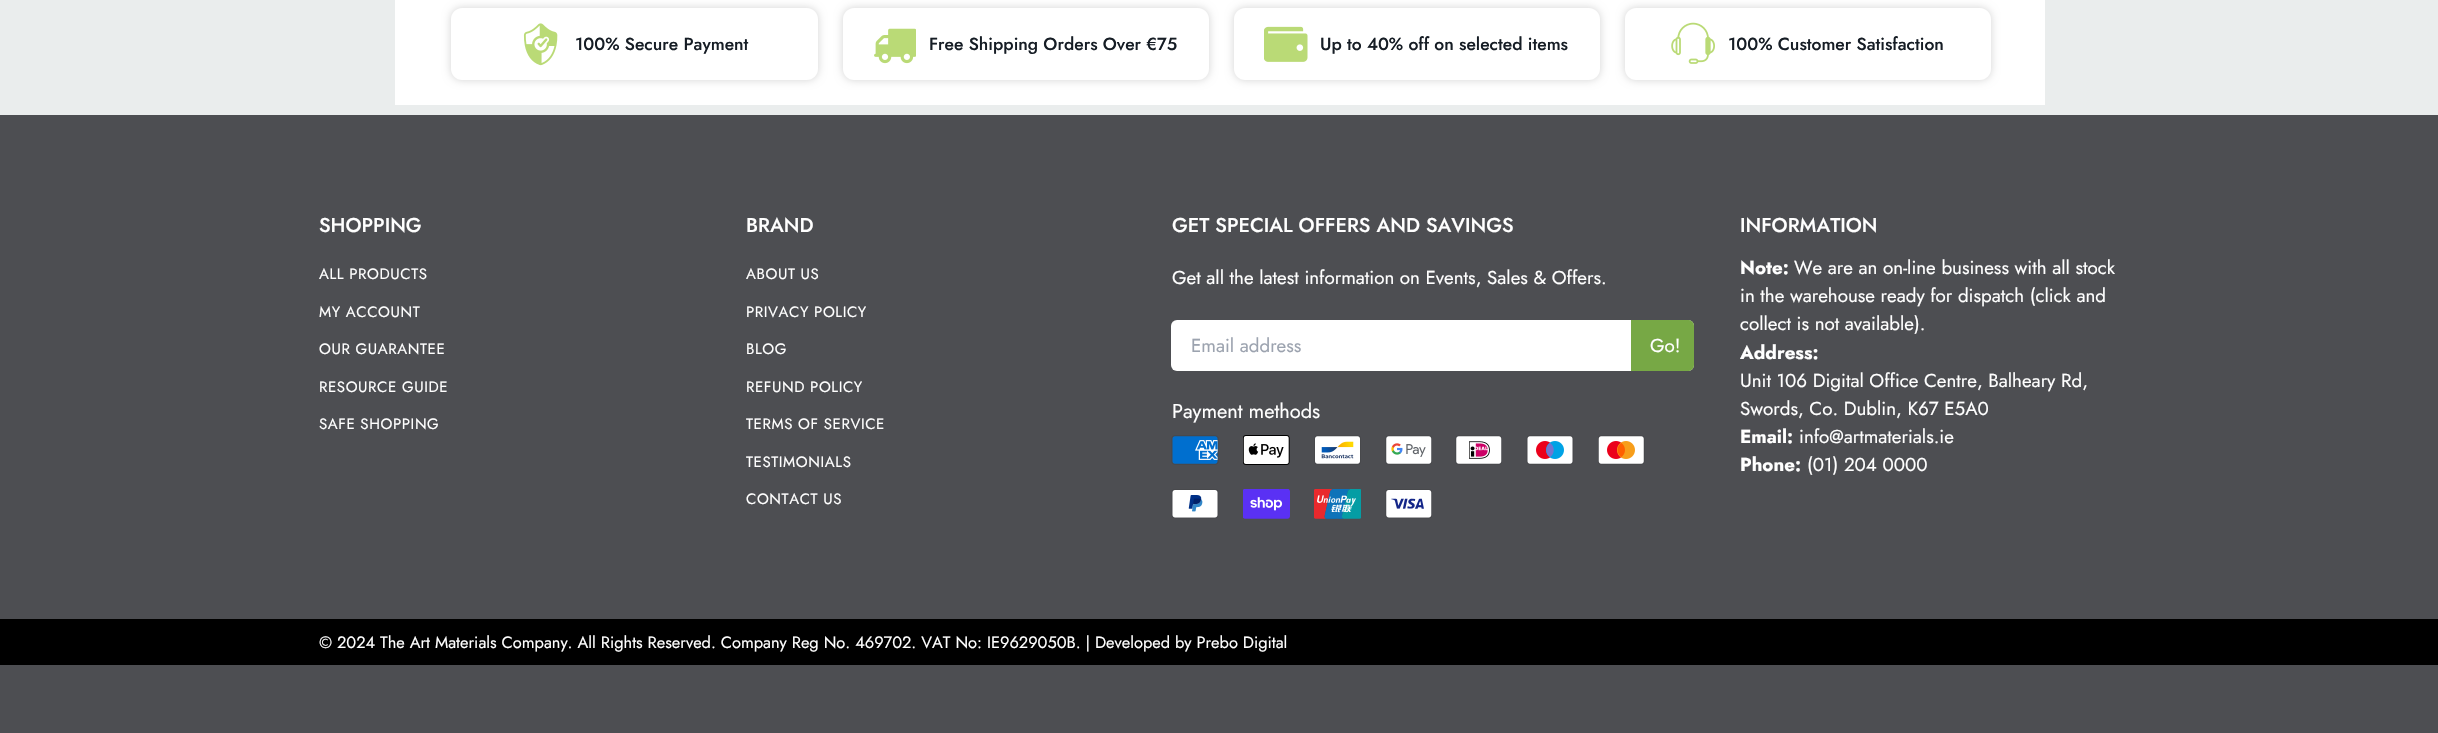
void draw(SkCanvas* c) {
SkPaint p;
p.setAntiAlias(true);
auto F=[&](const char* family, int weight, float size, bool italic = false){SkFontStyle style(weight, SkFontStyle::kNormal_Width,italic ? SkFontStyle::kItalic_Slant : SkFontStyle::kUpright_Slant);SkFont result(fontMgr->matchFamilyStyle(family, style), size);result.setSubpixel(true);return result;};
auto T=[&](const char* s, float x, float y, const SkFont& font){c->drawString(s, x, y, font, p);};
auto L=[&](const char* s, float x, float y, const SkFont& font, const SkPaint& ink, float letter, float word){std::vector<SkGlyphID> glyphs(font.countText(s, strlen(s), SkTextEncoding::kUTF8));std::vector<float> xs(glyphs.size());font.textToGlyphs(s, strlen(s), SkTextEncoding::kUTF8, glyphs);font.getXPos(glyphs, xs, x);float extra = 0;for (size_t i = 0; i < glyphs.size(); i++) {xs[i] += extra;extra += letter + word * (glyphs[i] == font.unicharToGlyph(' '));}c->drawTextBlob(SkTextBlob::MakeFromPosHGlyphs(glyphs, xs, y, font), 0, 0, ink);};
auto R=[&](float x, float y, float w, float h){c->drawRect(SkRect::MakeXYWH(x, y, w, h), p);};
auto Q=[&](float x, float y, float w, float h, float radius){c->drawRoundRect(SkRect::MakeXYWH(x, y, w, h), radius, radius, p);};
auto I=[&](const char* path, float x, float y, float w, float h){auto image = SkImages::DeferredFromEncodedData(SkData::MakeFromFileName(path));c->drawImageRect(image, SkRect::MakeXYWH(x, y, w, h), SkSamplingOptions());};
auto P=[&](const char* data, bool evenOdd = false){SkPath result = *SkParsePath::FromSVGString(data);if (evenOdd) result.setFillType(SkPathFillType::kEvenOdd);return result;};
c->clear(0xffeaeded);
p.setColor(0xffffffff);
R(395,0,1650,105);
c->save();
c->clipPath(P("M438 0h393v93h-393zm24 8h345c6 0 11 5 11 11v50c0 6-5 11-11 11h-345c-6 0-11-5-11-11v-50c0-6 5-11 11-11z",true),true);
p.setColor(0xffd3d3d3);
p.setMaskFilter(SkMaskFilter::MakeBlur(kNormal_SkBlurStyle, 4));
c->drawRoundRect(SkRect::MakeXYWH(451,8,367,72),11,11,p);
p.setMaskFilter(nullptr);
c->restore();
I("1.png",523,23,35,43);
auto f1 = F("Jost",500,17.5);
p.setColor(0xff161d25);
T("100% Secure Payment",575,50,f1);
c->save();
c->clipPath(P("M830 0h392v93h-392zm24 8h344c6 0 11 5 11 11v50c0 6-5 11-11 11h-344c-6 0-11-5-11-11v-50c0-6 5-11 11-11z",true),true);
p.setColor(0xffd3d3d3);
p.setMaskFilter(SkMaskFilter::MakeBlur(kNormal_SkBlurStyle, 4));
c->drawRoundRect(SkRect::MakeXYWH(843,8,366,72),11,11,p);
p.setMaskFilter(nullptr);
c->restore();
I("2.png",874,28,42,36);
p.setColor(0xff161d25);
T("Free Shipping Orders Over €75",929,50,f1);
c->save();
c->clipPath(P("M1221 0h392v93h-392zm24 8h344c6 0 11 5 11 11v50c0 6-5 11-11 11h-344c-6 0-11-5-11-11v-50c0-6 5-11 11-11z",true),true);
p.setColor(0xffd3d3d3);
p.setMaskFilter(SkMaskFilter::MakeBlur(kNormal_SkBlurStyle, 4));
c->drawRoundRect(SkRect::MakeXYWH(1234,8,366,72),11,11,p);
p.setMaskFilter(nullptr);
c->restore();
I("3.png",1264,26,44,36);
p.setColor(0xff161d25);
T("Up to 40% off on selected items",1320,50,f1);
c->save();
c->clipPath(P("M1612 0h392v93h-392zm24 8h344c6 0 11 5 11 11v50c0 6-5 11-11 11h-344c-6 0-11-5-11-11v-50c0-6 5-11 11-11z",true),true);
p.setColor(0xffd3d3d3);
p.setMaskFilter(SkMaskFilter::MakeBlur(kNormal_SkBlurStyle, 4));
c->drawRoundRect(SkRect::MakeXYWH(1625,8,366,72),11,11,p);
p.setMaskFilter(nullptr);
c->restore();
I("4.png",1671,22,44,42);
p.setColor(0xff161d25);
T("100% Customer Satisfaction",1728,50,f1);
p.setColor(0xff4d4e52);
R(0,115,2438,618);
auto f2 = F("Jost",500,20);
p.setColor(0xffffffff);
T("SHOPPING",319,232,f2);
auto f3 = F("Jost",400,15);
L("ALL PRODUCTS",319,279,f3,p,.6,0);
L("MY ACCOUNT",319,317,f3,p,.6,0);
L("OUR GUARANTEE",319,354,f3,p,.6,0);
L("RESOURCE GUIDE",319,392,f3,p,.6,0);
L("SAFE SHOPPING",319,429,f3,p,.6,0);
T("BRAND",746,232,f2);
L("ABOUT US",746,279,f3,p,.6,0);
L("PRIVACY POLICY",746,317,f3,p,.6,0);
L("BLOG",746,354,f3,p,.6,0);
L("REFUND POLICY",746,392,f3,p,.6,0);
L("TERMS OF SERVICE",746,429,f3,p,.6,0);
L("TESTIMONIALS",746,467,f3,p,.6,0);
L("CONTACT US",746,504,f3,p,.6,0);
T("GET SPECIAL OFFERS AND SAVINGS",1172,232,f2);
auto f4 = F("Jost",400,18.75);
T("Get all the latest information on Events, Sales & Offers.",1172,284,f4);
Q(1171,320,523,51,6);
p.setColor(0xff9ca3af);
T("Email address",1191,352,f4);
p.setColor(0xff77a845);
c->drawPath(P("M1631 320h57c3.5 0 6 2.5 6 6v39c0 3.5-2.5 6-6 6h-57z"),p);
p.setColor(0xffffffff);
T("Go!",1650,352,f4);
auto f5 = F("Jost",400,20);
T("Payment methods",1172,418,f5);
I("5.png",1171,435,48,30);
I("6.png",1243,435,47,30);
I("7.png",1314,435,47,30);
I("8.png",1385,435,47,30);
I("9.png",1455,435,47,30);
I("10.png",1526,435,48,30);
I("11.png",1598,435,47,30);
I("12.png",1171,489,48,30);
I("13.png",1243,489,47,30);
I("14.png",1314,489,47,30);
I("15.png",1385,489,47,30);
T("INFORMATION",1740,232,f2);
auto f6 = F("Jost",700,18.75);
T("Note:",1740,274,f6);
T("We are an on-line business with all stock",1794,274,f4);
T("in the warehouse ready for dispatch (click and",1740,302,f4);
T("collect is not available).",1740,330,f4);
T("Address:",1740,359,f6);
T("Unit 106 Digital Office Centre, Balheary Rd,",1740,387,f4);
T("Swords, Co. Dublin, K67 E5A0",1740,415,f4);
T("Email:",1740,443,f6);
T("info@artmaterials.ie",1799,443,f4);
T("Phone:",1740,471,f6);
T("(01) 204 0000",1807,471,f4);
p.setColor(0xff000000);
R(0,619,2438,46);
auto f7 = F("Jost",400,16.4);
p.setColor(0xffffffff);
T("© 2024 The Art Materials Company. All Rights Reserved. Company Reg No. 469702. VAT No: IE9629050B. | Developed by Prebo Digital",319,648,f7);
}
